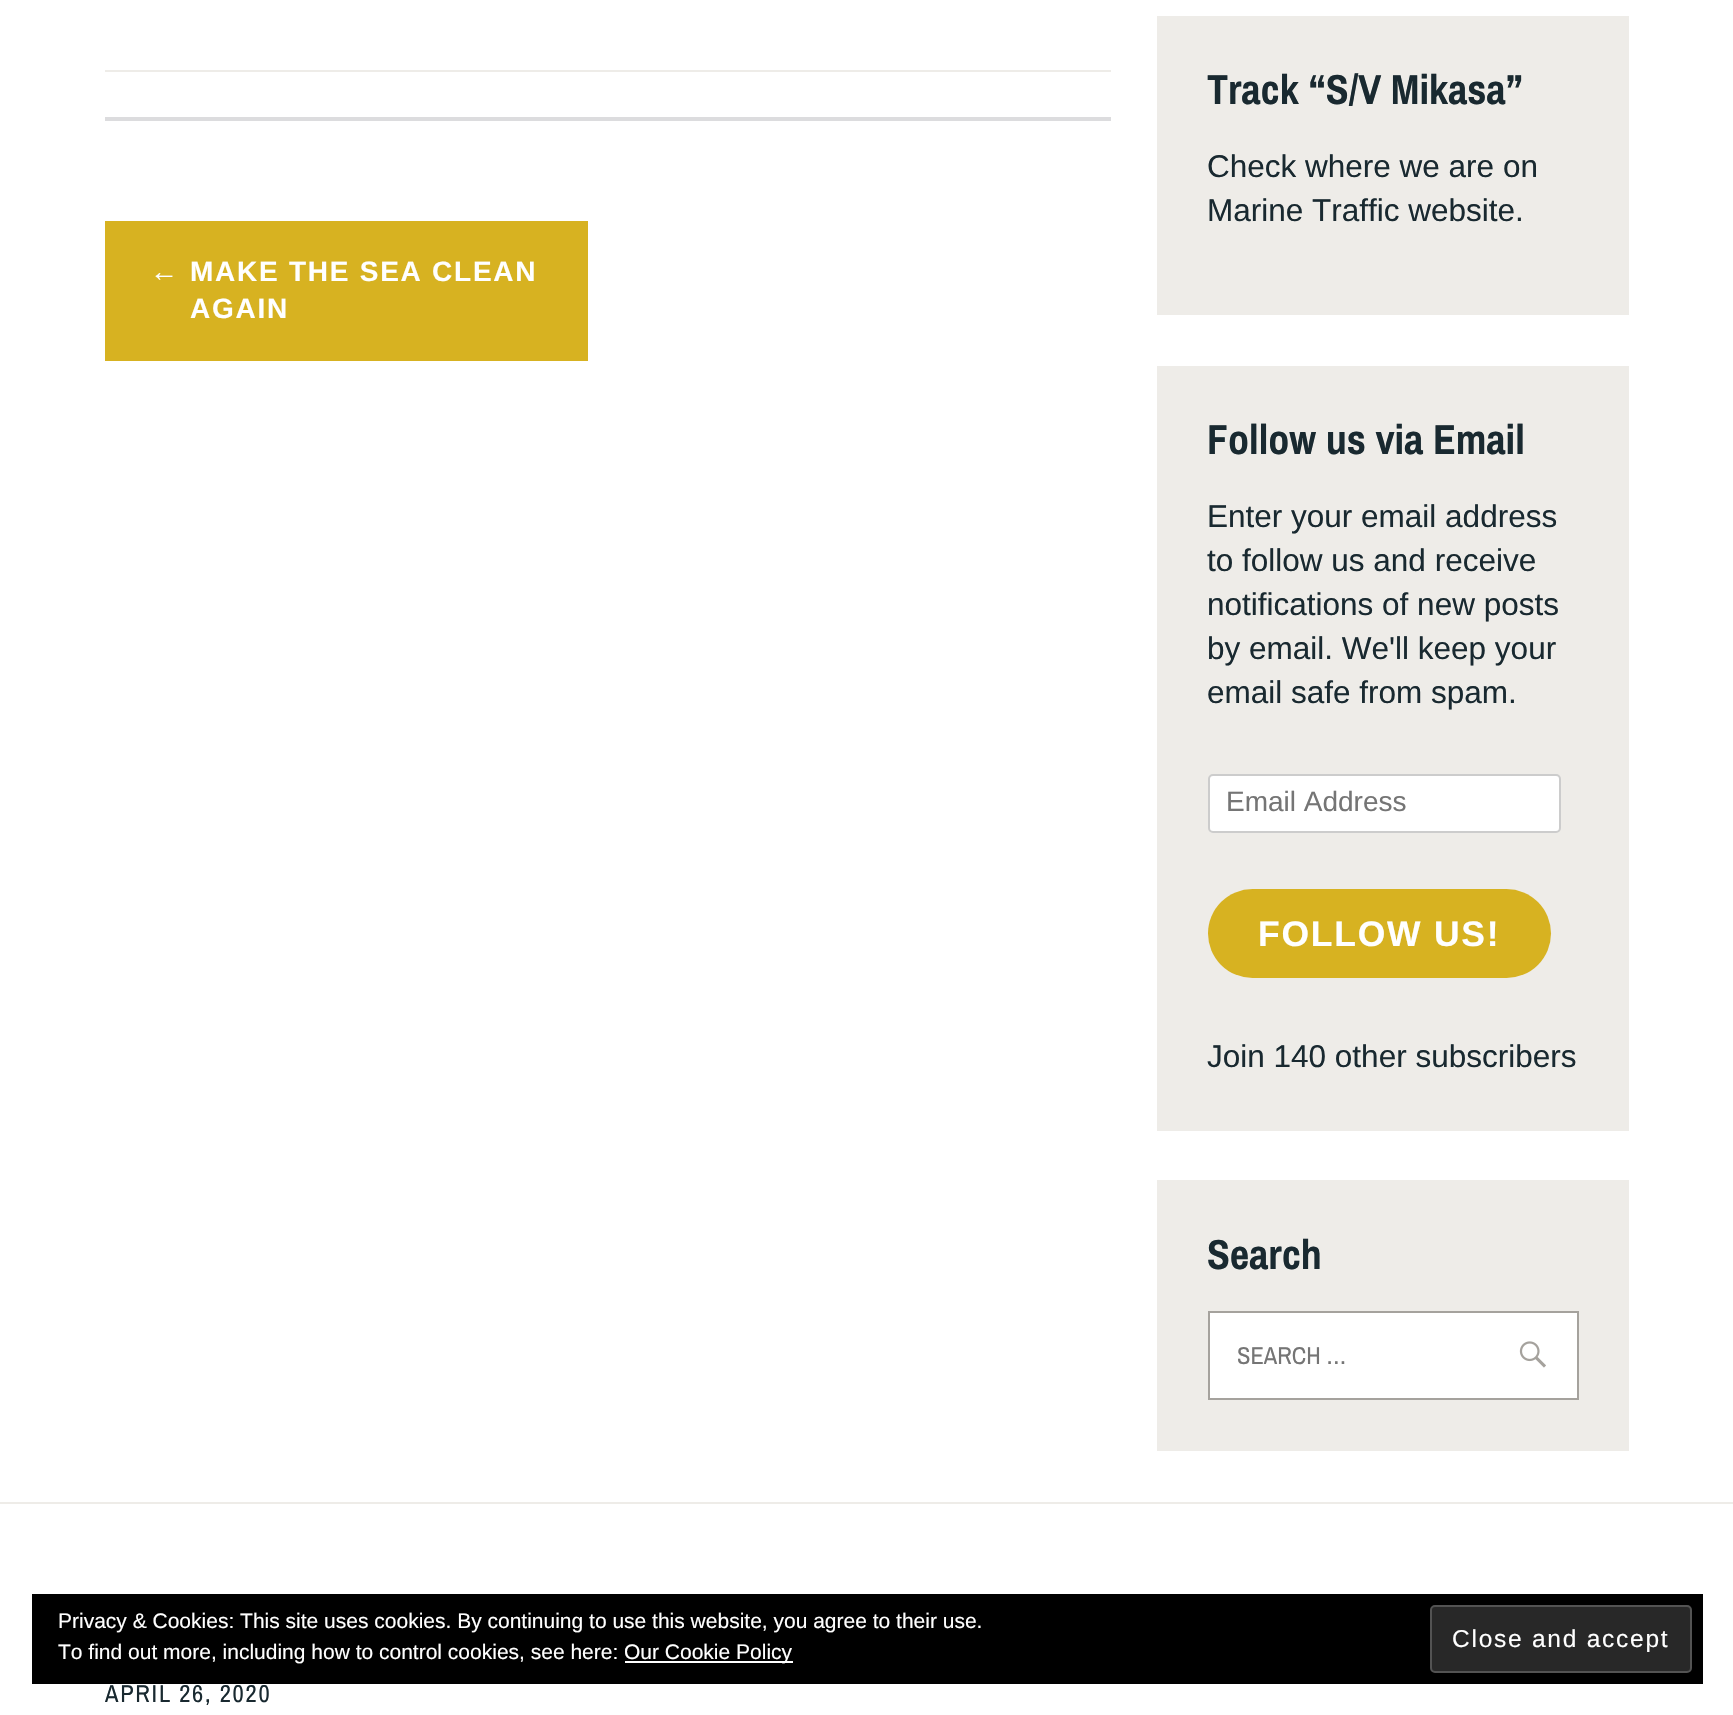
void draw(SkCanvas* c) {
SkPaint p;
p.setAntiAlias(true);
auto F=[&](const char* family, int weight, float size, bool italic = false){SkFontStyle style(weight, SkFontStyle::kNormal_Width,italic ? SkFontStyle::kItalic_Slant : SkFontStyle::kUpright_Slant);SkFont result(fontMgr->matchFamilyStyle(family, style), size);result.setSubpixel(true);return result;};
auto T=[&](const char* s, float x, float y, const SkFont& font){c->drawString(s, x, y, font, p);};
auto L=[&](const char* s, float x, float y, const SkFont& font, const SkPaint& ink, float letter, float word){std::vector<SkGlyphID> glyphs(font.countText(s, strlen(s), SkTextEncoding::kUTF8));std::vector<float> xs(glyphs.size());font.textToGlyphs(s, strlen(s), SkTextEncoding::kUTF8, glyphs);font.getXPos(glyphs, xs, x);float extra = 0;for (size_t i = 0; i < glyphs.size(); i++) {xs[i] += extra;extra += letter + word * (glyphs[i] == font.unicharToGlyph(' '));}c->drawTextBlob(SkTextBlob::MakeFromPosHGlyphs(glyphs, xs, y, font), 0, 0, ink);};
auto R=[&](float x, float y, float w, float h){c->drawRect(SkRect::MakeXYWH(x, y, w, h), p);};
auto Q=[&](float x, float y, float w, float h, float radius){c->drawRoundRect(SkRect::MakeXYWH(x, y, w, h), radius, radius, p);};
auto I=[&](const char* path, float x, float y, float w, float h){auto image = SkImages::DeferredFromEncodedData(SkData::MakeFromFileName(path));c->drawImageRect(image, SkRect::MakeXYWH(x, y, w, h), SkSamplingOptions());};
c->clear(0xffffffff);
p.setColor(0xffeeece8);
R(105,70,1006,2);
p.setColor(0xffdcdcde);
R(105,117,1006,4);
p.setColor(0xffd7b221);
R(105,221,483,140);
auto f1 = F("Liberation Sans",700,28);
p.setColor(0xffffffff);
L("←",150,281,f1,p,1.75,0);
L("MAKE THE SEA CLEAN",190,281,f1,p,1.75,0);
L("AGAIN",190,318,f1,p,1.75,0);
p.setColor(0xffeeece8);
R(1157,16,472,299);
auto f2 = F("Archivo Narrow",700,42);
p.setColor(0xff192930);
T("Track “S/V Mikasa”",1207,104,f2);
auto f3 = F("Liberation Sans",400,31.5);
T("Check where we are on",1207,177,f3);
T("Marine Traffic website.",1207,221,f3);
p.setColor(0xffeeece8);
R(1157,366,472,765);
p.setColor(0xff192930);
T("Follow us via Email",1207,454,f2);
T("Enter your email address",1207,527,f3);
T("to follow us and receive",1207,571,f3);
T("notifications of new posts",1207,615,f3);
T("by email. We'll keep your",1207,659,f3);
T("email safe from spam.",1207,703,f3);
p.setColor(0xffffffff);
c->drawRoundRect(SkRect::MakeXYWH(1209,775,351,57),4,4,p);
p.setStroke(true);
p.setStrokeWidth(2);
p.setColor(0xffcccccc);
c->drawRoundRect(SkRect::MakeXYWH(1209,775,351,57),4,4,p);
auto f4 = F("Liberation Sans",400,28);
p.setStroke(false);
p.setColor(0xff757575);
T("Email Address",1226,811,f4);
p.setColor(0xffd7b221);
Q(1208,889,343,89,44.5);
auto f5 = F("Liberation Sans",700,35.5);
p.setColor(0xffffffff);
L("FOLLOW US!",1258,946,f5,p,1.75,0);
p.setColor(0xff192930);
T("Join 140 other subscribers",1207,1067,f3);
p.setColor(0xffeeece8);
R(1157,1180,472,271);
p.setColor(0xff192930);
T("Search",1207,1269,f2);
p.setColor(0xffffffff);
c->drawRect(SkRect::MakeXYWH(1209,1312,369,87),p);
p.setStroke(true);
p.setColor(0xffa5a29d);
c->drawRect(SkRect::MakeXYWH(1209,1312,369,87),p);
auto f6 = F("Archivo Narrow",400,24.5);
p.setStroke(false);
p.setColor(0xff757575);
T("SEARCH …",1237,1364,f6);
I("1.png",1519,1341,27,27);
p.setColor(0xffeeece8);
R(0,1502,1733,2);
p.setColor(0xff192930);
L("APRIL 26, 2020",105,1702,f6,p,1.75,0);
p.setColor(0xff000000);
R(32,1594,1671,90);
auto f7 = F("Liberation Sans",400,21);
p.setColor(0xffffffff);
T("Privacy & Cookies: This site uses cookies. By continuing to use this website, you agree to their use.",58,1628,f7);
T("To find out more, including how to control cookies, see here:",58,1659,f7);
R(625,1661,168,2);
T("Our Cookie Policy",624,1659,f7);
p.setColor(0xff282828);
c->drawRoundRect(SkRect::MakeXYWH(1431,1606,260,66),4,4,p);
p.setStroke(true);
p.setColor(0xff535353);
c->drawRoundRect(SkRect::MakeXYWH(1431,1606,260,66),4,4,p);
auto f8 = F("Liberation Sans",400,24.5);
p.setStroke(false);
p.setColor(0xffffffff);
L("Close and accept",1452,1647,f8,p,1.75,0);
}
